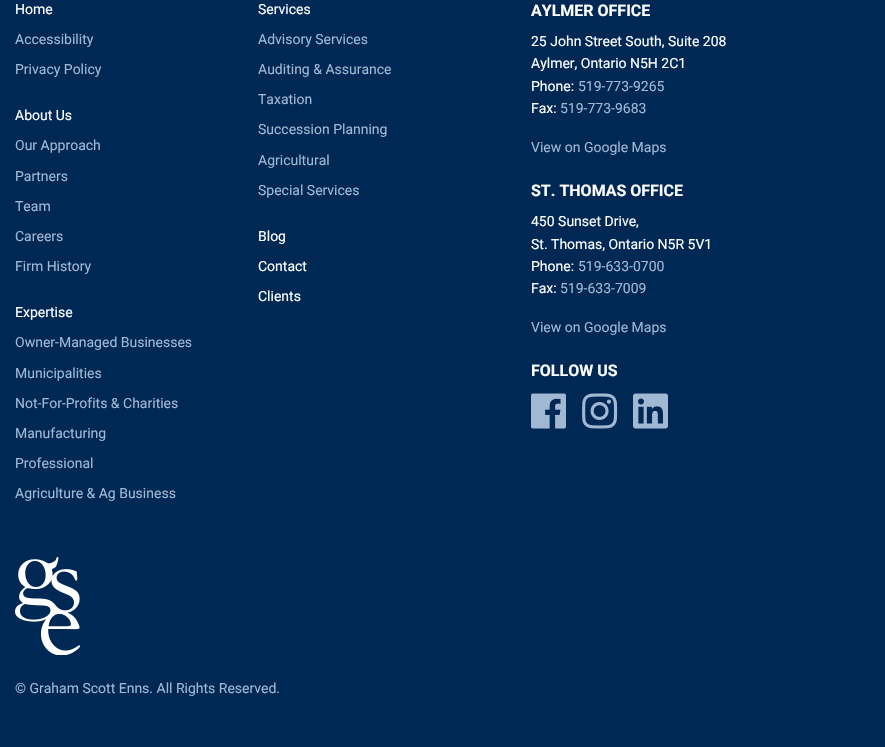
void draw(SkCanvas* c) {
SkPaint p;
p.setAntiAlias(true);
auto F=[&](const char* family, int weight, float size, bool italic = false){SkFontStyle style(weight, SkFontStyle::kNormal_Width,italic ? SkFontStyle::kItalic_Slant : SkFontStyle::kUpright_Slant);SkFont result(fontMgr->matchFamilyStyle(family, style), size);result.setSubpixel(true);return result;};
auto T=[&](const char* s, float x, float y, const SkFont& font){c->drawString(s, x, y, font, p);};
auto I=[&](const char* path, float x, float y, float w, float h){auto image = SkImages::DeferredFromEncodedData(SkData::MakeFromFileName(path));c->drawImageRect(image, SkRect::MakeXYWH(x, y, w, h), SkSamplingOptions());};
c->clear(0xff002855);
auto f1 = F("Roboto",400,14);
p.setColor(0xffffffff);
T("Home",15,14,f1);
p.setColor(0xffa1b8d3);
T("Accessibility",15,44,f1);
T("Privacy Policy",15,74,f1);
p.setColor(0xffffffff);
T("Services",258,14,f1);
p.setColor(0xffa1b8d3);
T("Advisory Services",258,44,f1);
T("Auditing & Assurance",258,74,f1);
T("Taxation",258,104,f1);
T("Succession Planning",258,134,f1);
T("Agricultural",258,165,f1);
T("Special Services",258,195,f1);
p.setColor(0xffffffff);
T("About Us",15,120,f1);
p.setColor(0xffa1b8d3);
T("Our Approach",15,150,f1);
T("Partners",15,181,f1);
T("Team",15,211,f1);
T("Careers",15,241,f1);
T("Firm History",15,271,f1);
p.setColor(0xffffffff);
T("Blog",258,241,f1);
T("Contact",258,271,f1);
T("Clients",258,301,f1);
T("Expertise",15,317,f1);
p.setColor(0xffa1b8d3);
T("Owner-Managed Businesses",15,347,f1);
T("Municipalities",15,378,f1);
T("Not-For-Profits & Charities",15,408,f1);
T("Manufacturing",15,438,f1);
T("Professional",15,468,f1);
T("Agriculture & Ag Business",15,498,f1);
auto f2 = F("Roboto",700,16);
p.setColor(0xffffffff);
T("AYLMER OFFICE",531,16,f2);
T("25 John Street South, Suite 208",531,46,f1);
T("Aylmer, Ontario N5H 2C1",531,68,f1);
T("Phone:",531,91,f1);
p.setColor(0xffa1b8d3);
T("519-773-9265",578,91,f1);
p.setColor(0xffffffff);
T("Fax:",531,113,f1);
p.setColor(0xffa1b8d3);
T("519-773-9683",560,113,f1);
T("View on Google Maps",531,152,f1);
p.setColor(0xffffffff);
T("ST. THOMAS OFFICE",531,196,f2);
T("450 Sunset Drive,",531,226,f1);
T("St. Thomas, Ontario N5R 5V1",531,249,f1);
T("Phone:",531,271,f1);
p.setColor(0xffa1b8d3);
T("519-633-0700",578,271,f1);
p.setColor(0xffffffff);
T("Fax:",531,293,f1);
p.setColor(0xffa1b8d3);
T("519-633-7009",560,293,f1);
T("View on Google Maps",531,332,f1);
p.setColor(0xffffffff);
T("FOLLOW US",531,376,f2);
I("1.png",531,393,35,36);
I("2.png",582,393,36,36);
I("3.png",633,393,35,36);
I("4.png",15,557,65,98);
p.setColor(0xffa1b8d3);
T("© Graham Scott Enns. All Rights Reserved.",15,693,f1);
}
